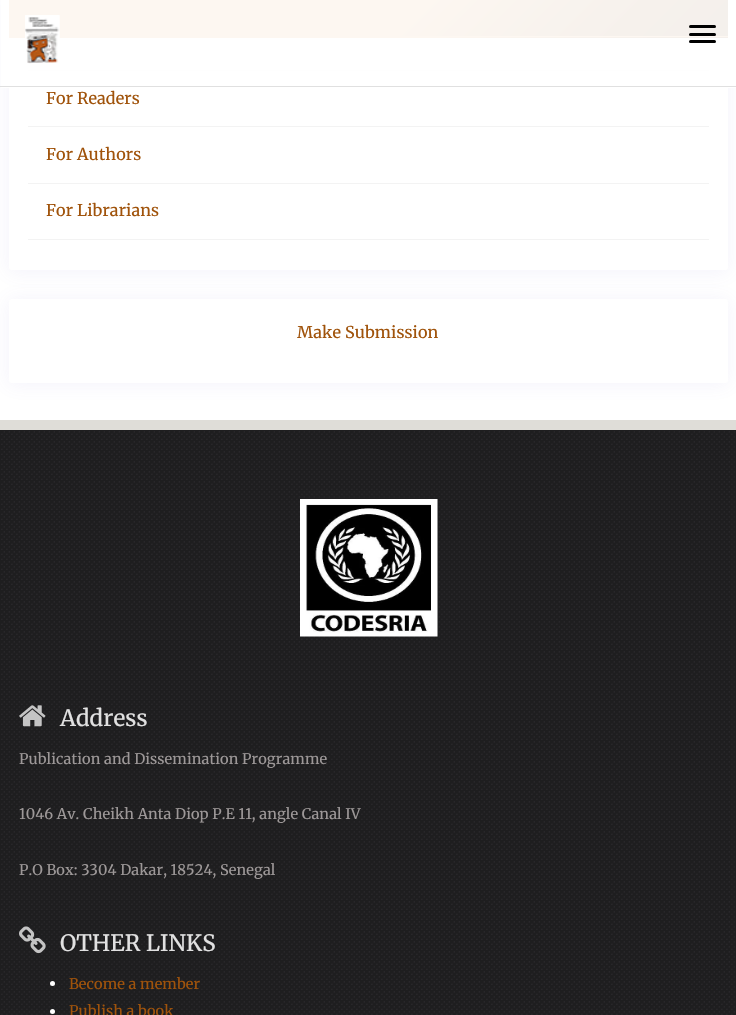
void draw(SkCanvas* c) {
SkPaint p;
p.setAntiAlias(true);
auto F=[&](const char* family, int weight, float size, bool italic = false){SkFontStyle style(weight, SkFontStyle::kNormal_Width,italic ? SkFontStyle::kItalic_Slant : SkFontStyle::kUpright_Slant);SkFont result(fontMgr->matchFamilyStyle(family, style), size);result.setSubpixel(true);return result;};
auto L=[&](const char* s, float x, float y, const SkFont& font, const SkPaint& ink, float letter, float word){std::vector<SkGlyphID> glyphs(font.countText(s, strlen(s), SkTextEncoding::kUTF8));std::vector<float> xs(glyphs.size());font.textToGlyphs(s, strlen(s), SkTextEncoding::kUTF8, glyphs);font.getXPos(glyphs, xs, x);float extra = 0;for (size_t i = 0; i < glyphs.size(); i++) {xs[i] += extra;extra += letter + word * (glyphs[i] == font.unicharToGlyph(' '));}c->drawTextBlob(SkTextBlob::MakeFromPosHGlyphs(glyphs, xs, y, font), 0, 0, ink);};
auto R=[&](float x, float y, float w, float h){c->drawRect(SkRect::MakeXYWH(x, y, w, h), p);};
auto Q=[&](float x, float y, float w, float h, float radius){c->drawRoundRect(SkRect::MakeXYWH(x, y, w, h), radius, radius, p);};
auto I=[&](const char* path, float x, float y, float w, float h){auto image = SkImages::DeferredFromEncodedData(SkData::MakeFromFileName(path));c->drawImageRect(image, SkRect::MakeXYWH(x, y, w, h), SkSamplingOptions());};
c->clear(0xffffffff);
p.setColor(0x14716aca);
p.setMaskFilter(SkMaskFilter::MakeBlur(kNormal_SkBlurStyle, 9.5));
c->drawRoundRect(SkRect::MakeXYWH(8,-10,721,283),4,4,p);
p.setMaskFilter(nullptr);
p.setColor(0xffffffff);
Q(9,-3,719,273,2.5);
{
const SkColor colors[] = {0xffe3964c,0xffe3964c,0xff884709,0xff402204};
const float stops[] = {.06,.45,.71,1};
const SkPoint ends[] = {{177,-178}, {636,281}};
p.setShader(SkGradientShader::MakeLinear(ends, colors, stops, 4, SkTileMode::kClamp));
p.setAlpha(255);
}
R(9,0,719,36);
{
const SkColor colors[] = {0xffe3964c,0xffe3964c,0xff884709,0xff402204};
const float stops[] = {.06,.45,.71,1};
const SkPoint ends[] = {{177,-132}, {636,327}};
p.setShader(SkGradientShader::MakeLinear(ends, colors, stops, 4, SkTileMode::kClamp));
p.setAlpha(255);
}
R(9,37,719,1);
p.setShader(nullptr);
p.setColor(0xffe3964c);
R(9,36,719,1);
p.setColor(0xfff3f3f3);
R(28,70,681,1);
p.setColor(0xebffffff);
R(1,0,735,88);
p.setColor(0xffe0e0e0);
R(0,86,736,1);
I("1.png",25,15,35,49);
p.setColor(0xff000000);
Q(689,25,27,3,1.5);
Q(689,33,27,3,1.5);
Q(689,40,27,3,1.5);
auto f1 = F("Merriweather",300,16.25);
p.setColor(0xffa0530b);
L("For Readers",46,104,f1,p,.1,0);
p.setColor(0xfff3f3f3);
R(28,126,681,1);
p.setColor(0xffa0530b);
L("For Authors",46,160,f1,p,.1,0);
p.setColor(0xfff3f3f3);
R(28,183,681,1);
R(28,239,681,1);
p.setColor(0xffa0530b);
L("For Librarians",46,216,f1,p,.1,0);
p.setColor(0x14716aca);
p.setMaskFilter(SkMaskFilter::MakeBlur(kNormal_SkBlurStyle, 9.5));
c->drawRoundRect(SkRect::MakeXYWH(8,299,721,86),4,4,p);
p.setMaskFilter(nullptr);
p.setColor(0xffffffff);
Q(9,299,719,84,2.5);
p.setColor(0xffa0530b);
L("Make Submission",297,338,f1,p,.1,0);
p.setColor(0xffdfddd8);
R(0,420,736,10);
p.setColor(0xff1e1e1f);
R(0,430,736,585);
I("2.png",1,431,734,584);
I("3.png",300,499,138,138);
I("4.png",19,705,27,22);
auto f2 = F("Merriweather",300,22.5);
p.setColor(0xffe1e1e1);
L("Address",60,726,f2,p,.1,0);
auto f3 = F("Merriweather",300,14.6);
p.setColor(0xff9d9898);
L("Publication and Dissemination Programme",19,764,f3,p,.1,0);
L("1046 Av. Cheikh Anta Diop P.E 11, angle Canal IV",19,819,f3,p,.1,0);
L("P.O Box: 3304 Dakar, 18524, Senegal",19,875,f3,p,.1,0);
I("5.png",19,926,27,28);
p.setColor(0xffe1e1e1);
L("OTHER LINKS",60,951,f2,p,.1,0);
p.setColor(0xffffffff);
c->drawCircle(52.5,983.5,2.5,p);
p.setColor(0xffa0530b);
L("Become a member",69,989,f3,p,.1,0);
p.setColor(0xffffffff);
c->drawCircle(52.5,1011.5,2.5,p);
p.setColor(0xffa0530b);
L("Publish a book",69,1016,f3,p,.1,0);
}
